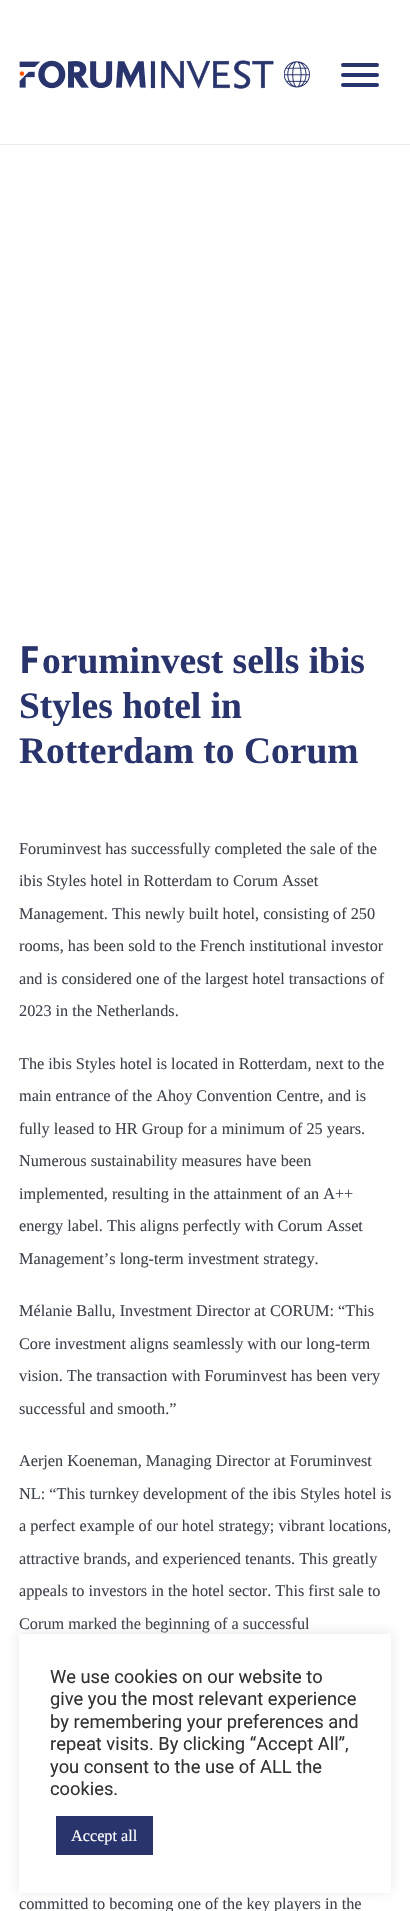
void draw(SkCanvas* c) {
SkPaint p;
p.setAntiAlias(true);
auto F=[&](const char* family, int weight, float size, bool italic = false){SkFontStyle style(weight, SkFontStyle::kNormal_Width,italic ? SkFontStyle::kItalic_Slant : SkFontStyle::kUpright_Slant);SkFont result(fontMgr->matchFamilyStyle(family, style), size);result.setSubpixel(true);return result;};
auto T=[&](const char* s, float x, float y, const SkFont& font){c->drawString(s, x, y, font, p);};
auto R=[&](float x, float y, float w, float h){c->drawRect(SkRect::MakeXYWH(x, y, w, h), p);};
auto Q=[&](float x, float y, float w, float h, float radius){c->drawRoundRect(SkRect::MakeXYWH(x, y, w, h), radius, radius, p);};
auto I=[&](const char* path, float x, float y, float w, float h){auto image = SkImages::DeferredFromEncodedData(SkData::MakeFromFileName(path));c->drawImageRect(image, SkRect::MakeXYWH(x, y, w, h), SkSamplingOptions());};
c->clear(0xffffffff);
p.setColor(0xffebebeb);
R(0,144,410,1);
I("1.png",19,60,255,29);
I("2.png",284,61,26,27);
p.setColor(0xff29346c);
Q(341,63,38,4,2);
Q(341,73,38,4,2);
Q(341,83,38,4,2);
auto f1 = F("Noto Sans",700,37.5);
T("F",19,673,f1);
auto f2 = F("Liberation Serif",700,37.5);
T("oruminvest sells ibis",42,673,f2);
T("Styles hotel in",19,718,f2);
T("Rotterdam to Corum",19,763,f2);
auto f3 = F("Liberation Serif",400,16.25);
p.setColor(0xff3e424b);
T("Foruminvest has successfully completed the sale of the",19,854,f3);
T("ibis Styles hotel in Rotterdam to Corum Asset",19,886,f3);
T("Management. This newly built hotel, consisting of 250",19,919,f3);
T("rooms, has been sold to the French institutional investor",19,951,f3);
T("and is considered one of the largest hotel transactions of",19,984,f3);
T("2023 in the Netherlands.",19,1016,f3);
T("The ibis Styles hotel is located in Rotterdam, next to the",19,1069,f3);
T("main entrance of the Ahoy Convention Centre, and is",19,1101,f3);
T("fully leased to HR Group for a minimum of 25 years.",19,1134,f3);
T("Numerous sustainability measures have been",19,1166,f3);
T("implemented, resulting in the attainment of an A++",19,1199,f3);
T("energy label. This aligns perfectly with Corum Asset",19,1231,f3);
T("Management’s long-term investment strategy.",19,1264,f3);
T("Mélanie Ballu, Investment Director at CORUM: “This",19,1316,f3);
T("Core investment aligns seamlessly with our long-term",19,1349,f3);
T("vision. The transaction with Foruminvest has been very",19,1381,f3);
T("successful and smooth.”",19,1414,f3);
T("Aerjen Koeneman, Managing Director at Foruminvest",19,1466,f3);
T("NL: “This turnkey development of the ibis Styles hotel is",19,1499,f3);
T("a perfect example of our hotel strategy; vibrant locations,",19,1531,f3);
T("attractive brands, and experienced tenants. This greatly",19,1564,f3);
T("appeals to investors in the hotel sector. This first sale to",19,1596,f3);
T("Corum marked the beginning of a successful",19,1629,f3);
T("committed to becoming one of the key players in the",19,1909,f3);
p.setColor(0x4dacabab);
p.setMaskFilter(SkMaskFilter::MakeBlur(kNormal_SkBlurStyle, 6));
c->drawRect(SkRect::MakeXYWH(19,1633,372,258),p);
p.setMaskFilter(nullptr);
p.setColor(0xffffffff);
R(19,1634,372,259);
auto f4 = F("Roboto",400,18.3);
p.setColor(0xff333333);
T("We use cookies on our website to",50,1683,f4);
T("give you the most relevant experience",50,1705,f4);
T("by remembering your preferences and",50,1728,f4);
T("repeat visits. By clicking “Accept All”,",50,1750,f4);
T("you consent to the use of ALL the",50,1773,f4);
T("cookies.",50,1795,f4);
p.setColor(0xff2a346c);
R(56,1816,97,39);
p.setColor(0xffffffff);
T("Accept all",71,1841,f3);
}
